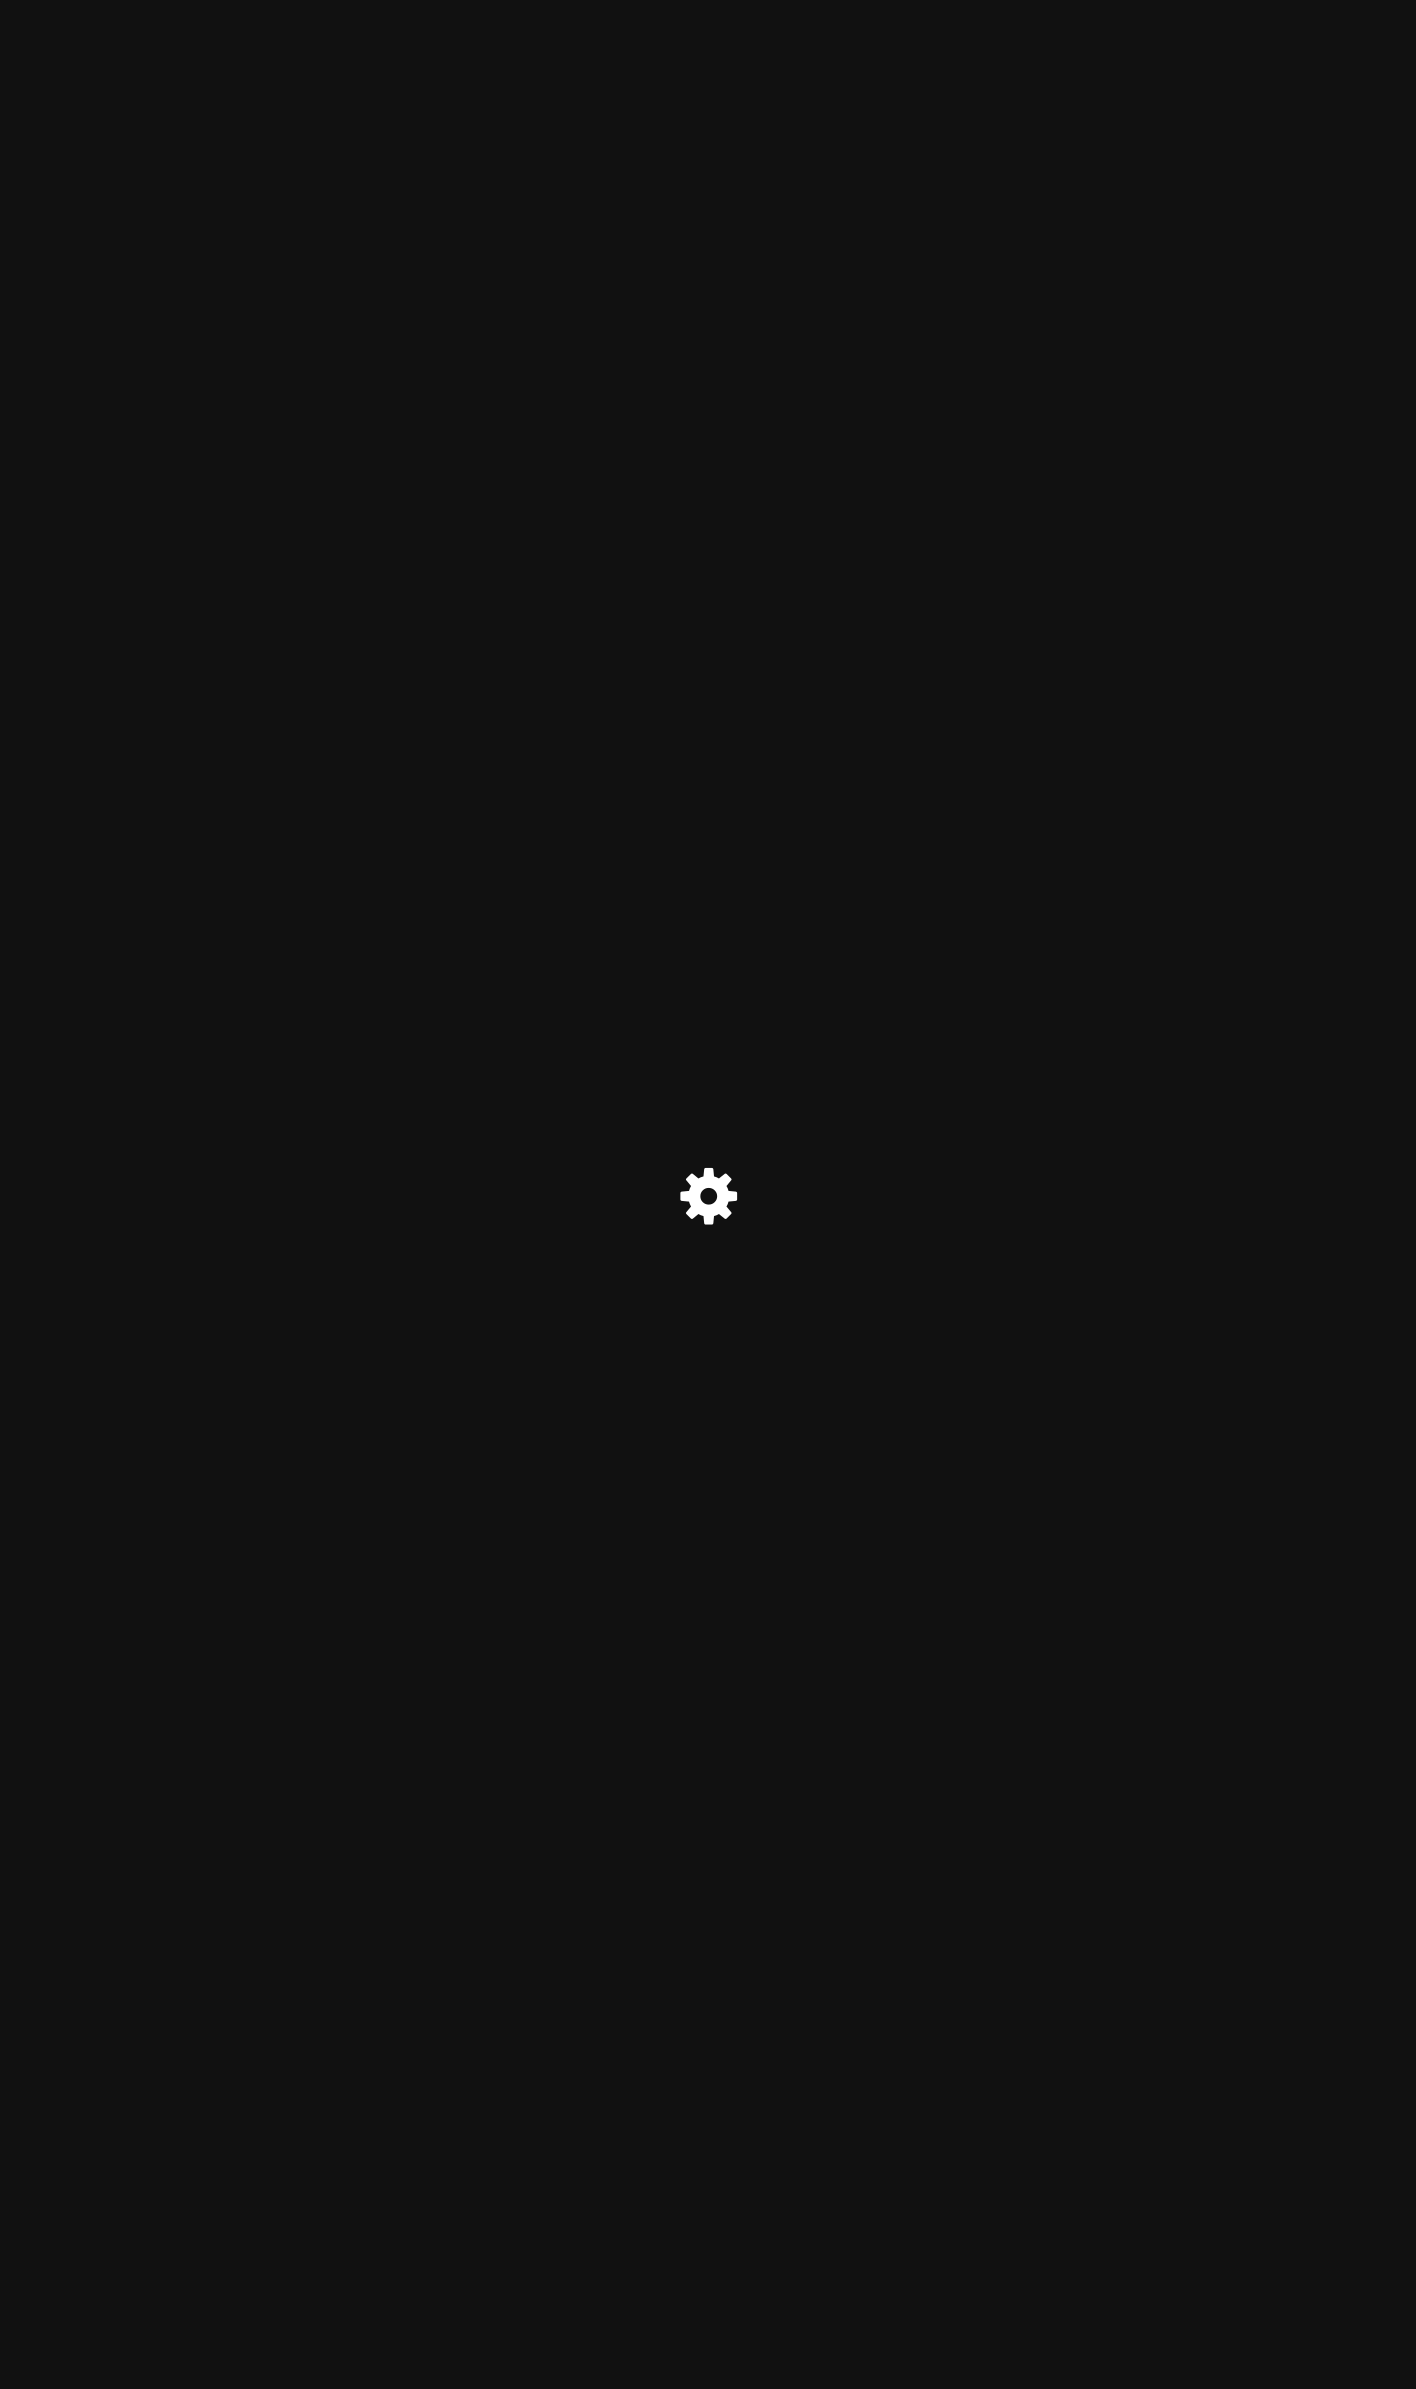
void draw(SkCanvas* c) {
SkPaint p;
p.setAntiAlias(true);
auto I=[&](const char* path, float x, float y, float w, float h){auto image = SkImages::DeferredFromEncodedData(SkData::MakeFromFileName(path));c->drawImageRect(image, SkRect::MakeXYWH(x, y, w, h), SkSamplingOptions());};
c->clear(0xff111111);
I("1.png",680,1167,58,58);
}
